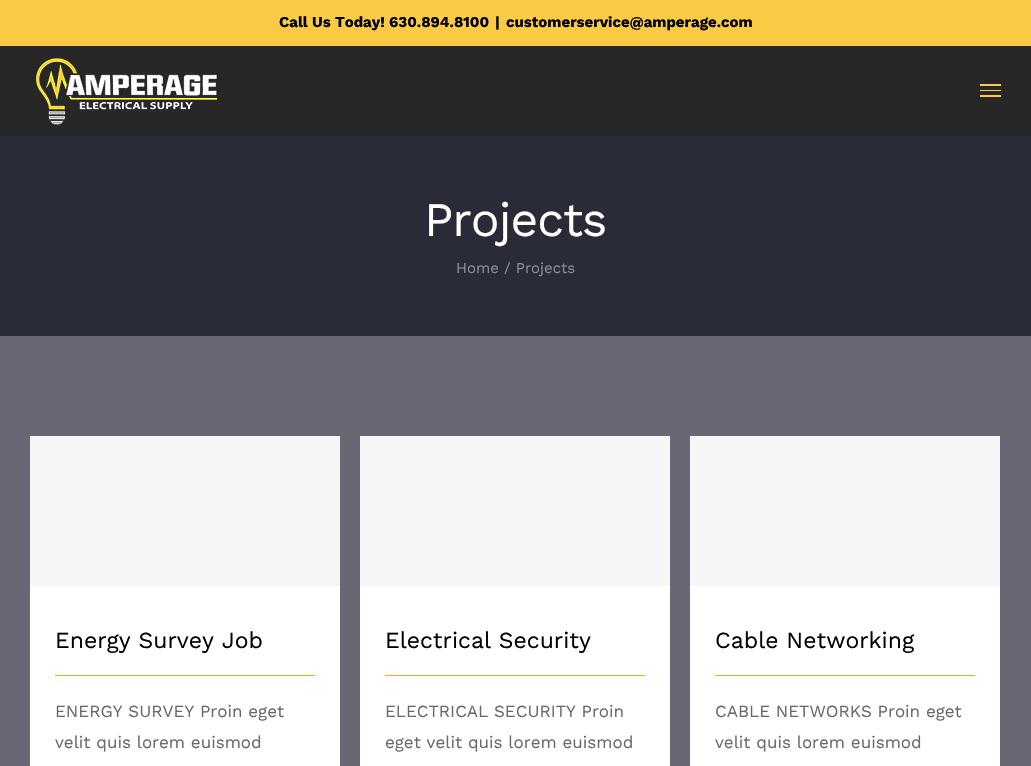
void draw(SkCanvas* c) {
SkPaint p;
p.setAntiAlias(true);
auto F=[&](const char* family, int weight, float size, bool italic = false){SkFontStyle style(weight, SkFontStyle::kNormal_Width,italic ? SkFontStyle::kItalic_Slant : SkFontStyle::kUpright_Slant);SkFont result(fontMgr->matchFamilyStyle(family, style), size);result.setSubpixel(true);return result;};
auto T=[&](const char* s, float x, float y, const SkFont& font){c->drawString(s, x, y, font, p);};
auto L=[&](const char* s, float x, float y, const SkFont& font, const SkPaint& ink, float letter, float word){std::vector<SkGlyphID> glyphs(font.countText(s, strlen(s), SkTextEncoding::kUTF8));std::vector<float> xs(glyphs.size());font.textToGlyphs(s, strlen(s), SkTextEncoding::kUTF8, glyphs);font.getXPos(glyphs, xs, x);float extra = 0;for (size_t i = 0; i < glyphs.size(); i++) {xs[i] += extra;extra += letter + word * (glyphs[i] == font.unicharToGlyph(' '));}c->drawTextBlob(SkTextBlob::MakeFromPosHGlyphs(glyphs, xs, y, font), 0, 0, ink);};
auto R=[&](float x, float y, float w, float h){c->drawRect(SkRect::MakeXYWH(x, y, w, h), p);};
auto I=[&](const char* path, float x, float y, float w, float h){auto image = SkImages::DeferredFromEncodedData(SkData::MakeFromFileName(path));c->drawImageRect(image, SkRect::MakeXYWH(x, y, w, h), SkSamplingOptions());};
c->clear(0xff292b37);
p.setColor(0xfff9cb44);
R(0,0,1031,46);
auto f1 = F("Work Sans",700,15);
p.setColor(0xff000000);
T("Call Us Today! 630.894.8100",279,27,f1);
T("|",495,27,f1);
T("customerservice@amperage.com",506,27,f1);
p.setColor(0xff272727);
R(0,46,1031,90);
I("1.png",36,58,182,67);
p.setColor(0xfff9cb44);
R(980,84,21,2);
R(980,90,21,1);
R(980,95,21,2);
auto f2 = F("Work Sans",400,48);
p.setColor(0xffffffff);
L("Projects",424,236,f2,p,-1,0);
auto f3 = F("Work Sans",400,15);
p.setColor(0xff8b8c97);
T("Home / Projects",456,273,f3);
p.setColor(0xff696773);
R(0,336,1031,430);
p.setColor(0xffffffff);
R(30,586,310,180);
p.setColor(0xfff6f6f6);
R(30,436,310,150);
auto f4 = F("Work Sans",400,23);
p.setColor(0xff000000);
T("Energy Survey Job",55,648,f4);
p.setColor(0xffffaa06);
R(55,675,260,1);
auto f5 = F("Work Sans",400,17);
p.setColor(0xff696773);
T("ENERGY SURVEY Proin eget",55,717,f5);
T("velit quis lorem euismod",55,748,f5);
p.setColor(0xffffffff);
R(360,586,310,180);
p.setColor(0xfff6f6f6);
R(360,436,310,150);
p.setColor(0xff000000);
T("Electrical Security",385,648,f4);
p.setColor(0xffffaa06);
R(385,675,260,1);
p.setColor(0xff696773);
T("ELECTRICAL SECURITY Proin",385,717,f5);
T("eget velit quis lorem euismod",385,748,f5);
p.setColor(0xffffffff);
R(690,586,310,180);
p.setColor(0xfff6f6f6);
R(690,436,310,150);
p.setColor(0xff000000);
T("Cable Networking",715,648,f4);
p.setColor(0xffffaa06);
R(715,675,260,1);
p.setColor(0xff696773);
T("CABLE NETWORKS Proin eget",715,717,f5);
T("velit quis lorem euismod",715,748,f5);
}
